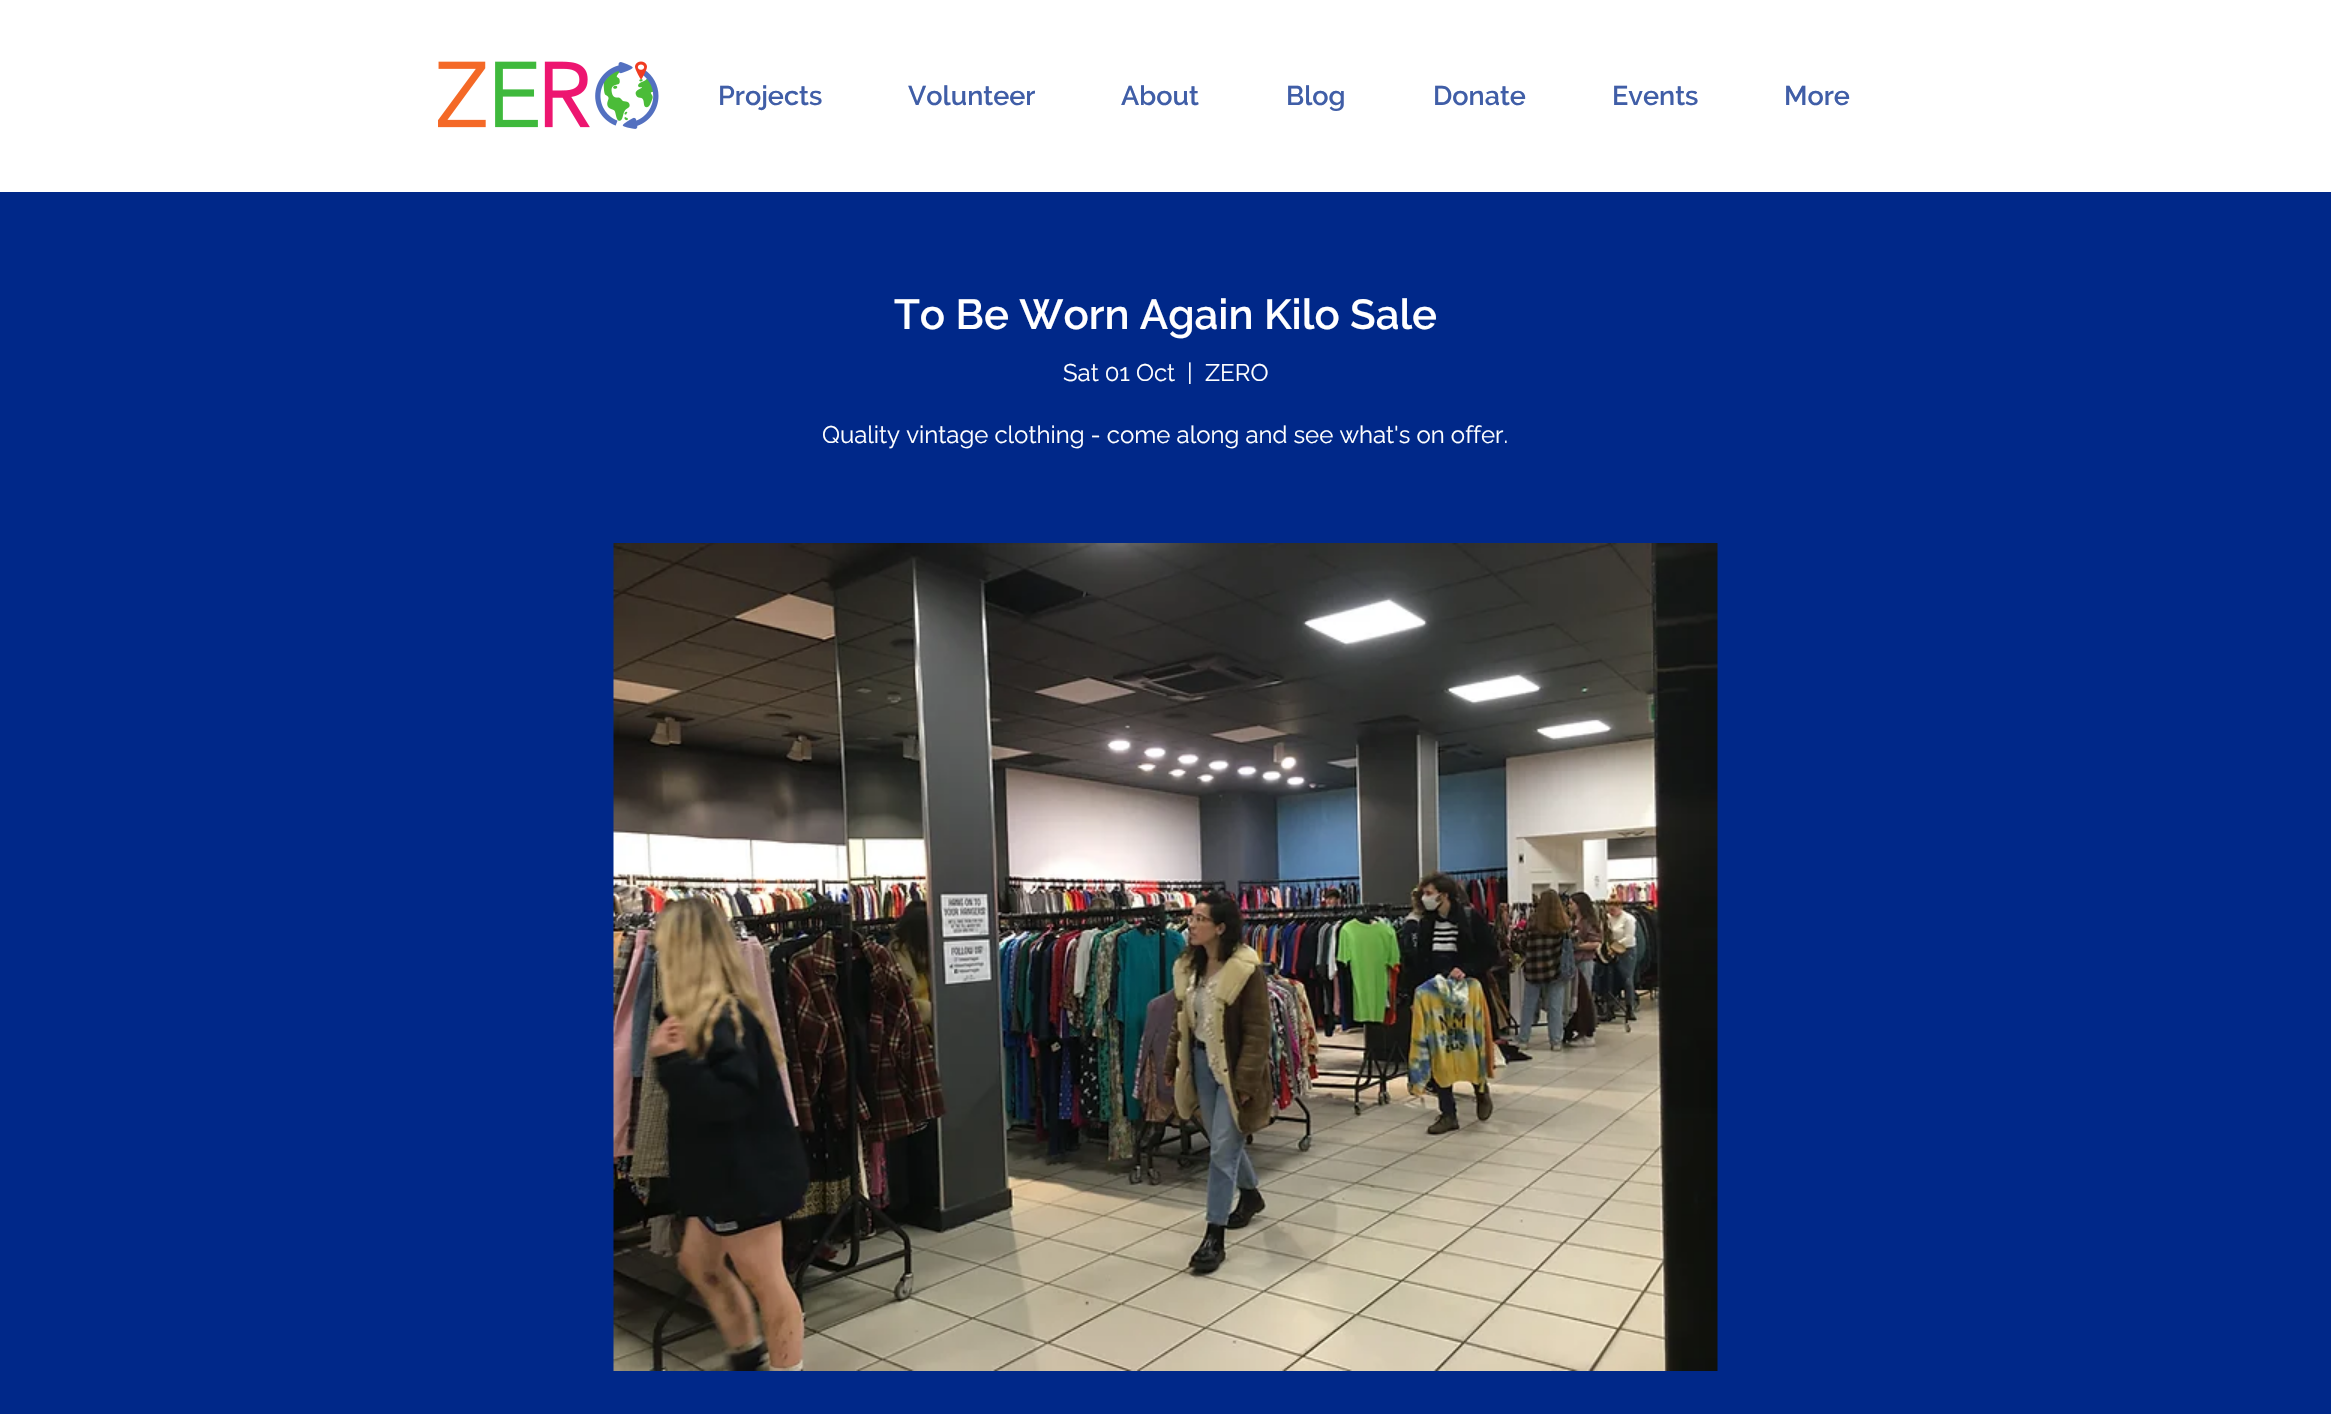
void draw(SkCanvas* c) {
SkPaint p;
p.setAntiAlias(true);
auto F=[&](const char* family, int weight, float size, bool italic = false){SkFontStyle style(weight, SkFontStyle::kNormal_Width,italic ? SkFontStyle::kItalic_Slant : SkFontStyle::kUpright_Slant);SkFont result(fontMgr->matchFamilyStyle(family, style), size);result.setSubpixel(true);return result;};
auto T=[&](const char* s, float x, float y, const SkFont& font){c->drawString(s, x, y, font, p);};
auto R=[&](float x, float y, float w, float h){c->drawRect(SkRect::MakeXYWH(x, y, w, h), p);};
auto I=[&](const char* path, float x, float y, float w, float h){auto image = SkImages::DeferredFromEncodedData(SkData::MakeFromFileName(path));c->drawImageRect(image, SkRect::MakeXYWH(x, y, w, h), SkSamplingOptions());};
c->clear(0xffffffff);
I("1.png",438,61,221,68);
auto f1 = F("Raleway",600,27);
p.setColor(0xff405ea7);
T("Projects",718,105,f1);
T("Volunteer",908,105,f1);
T("About",1121,105,f1);
T("Blog",1286,105,f1);
T("Donate",1433,105,f1);
T("Events",1612,105,f1);
T("More",1784,105,f1);
p.setColor(0xff002889);
R(0,192,2331,1222);
auto f2 = F("Raleway",600,42);
p.setColor(0xffffffff);
T("To Be Worn Again Kilo Sale",894,329,f2);
auto f3 = F("Raleway",400,24);
T("Sat 01 Oct",1063,381,f3);
T("|",1187,381,f3);
T("ZERO",1205,381,f3);
T("Quality vintage clothing - come along and see what's on offer.",822,443,f3);
I("2.png",613,543,1105,828);
}
